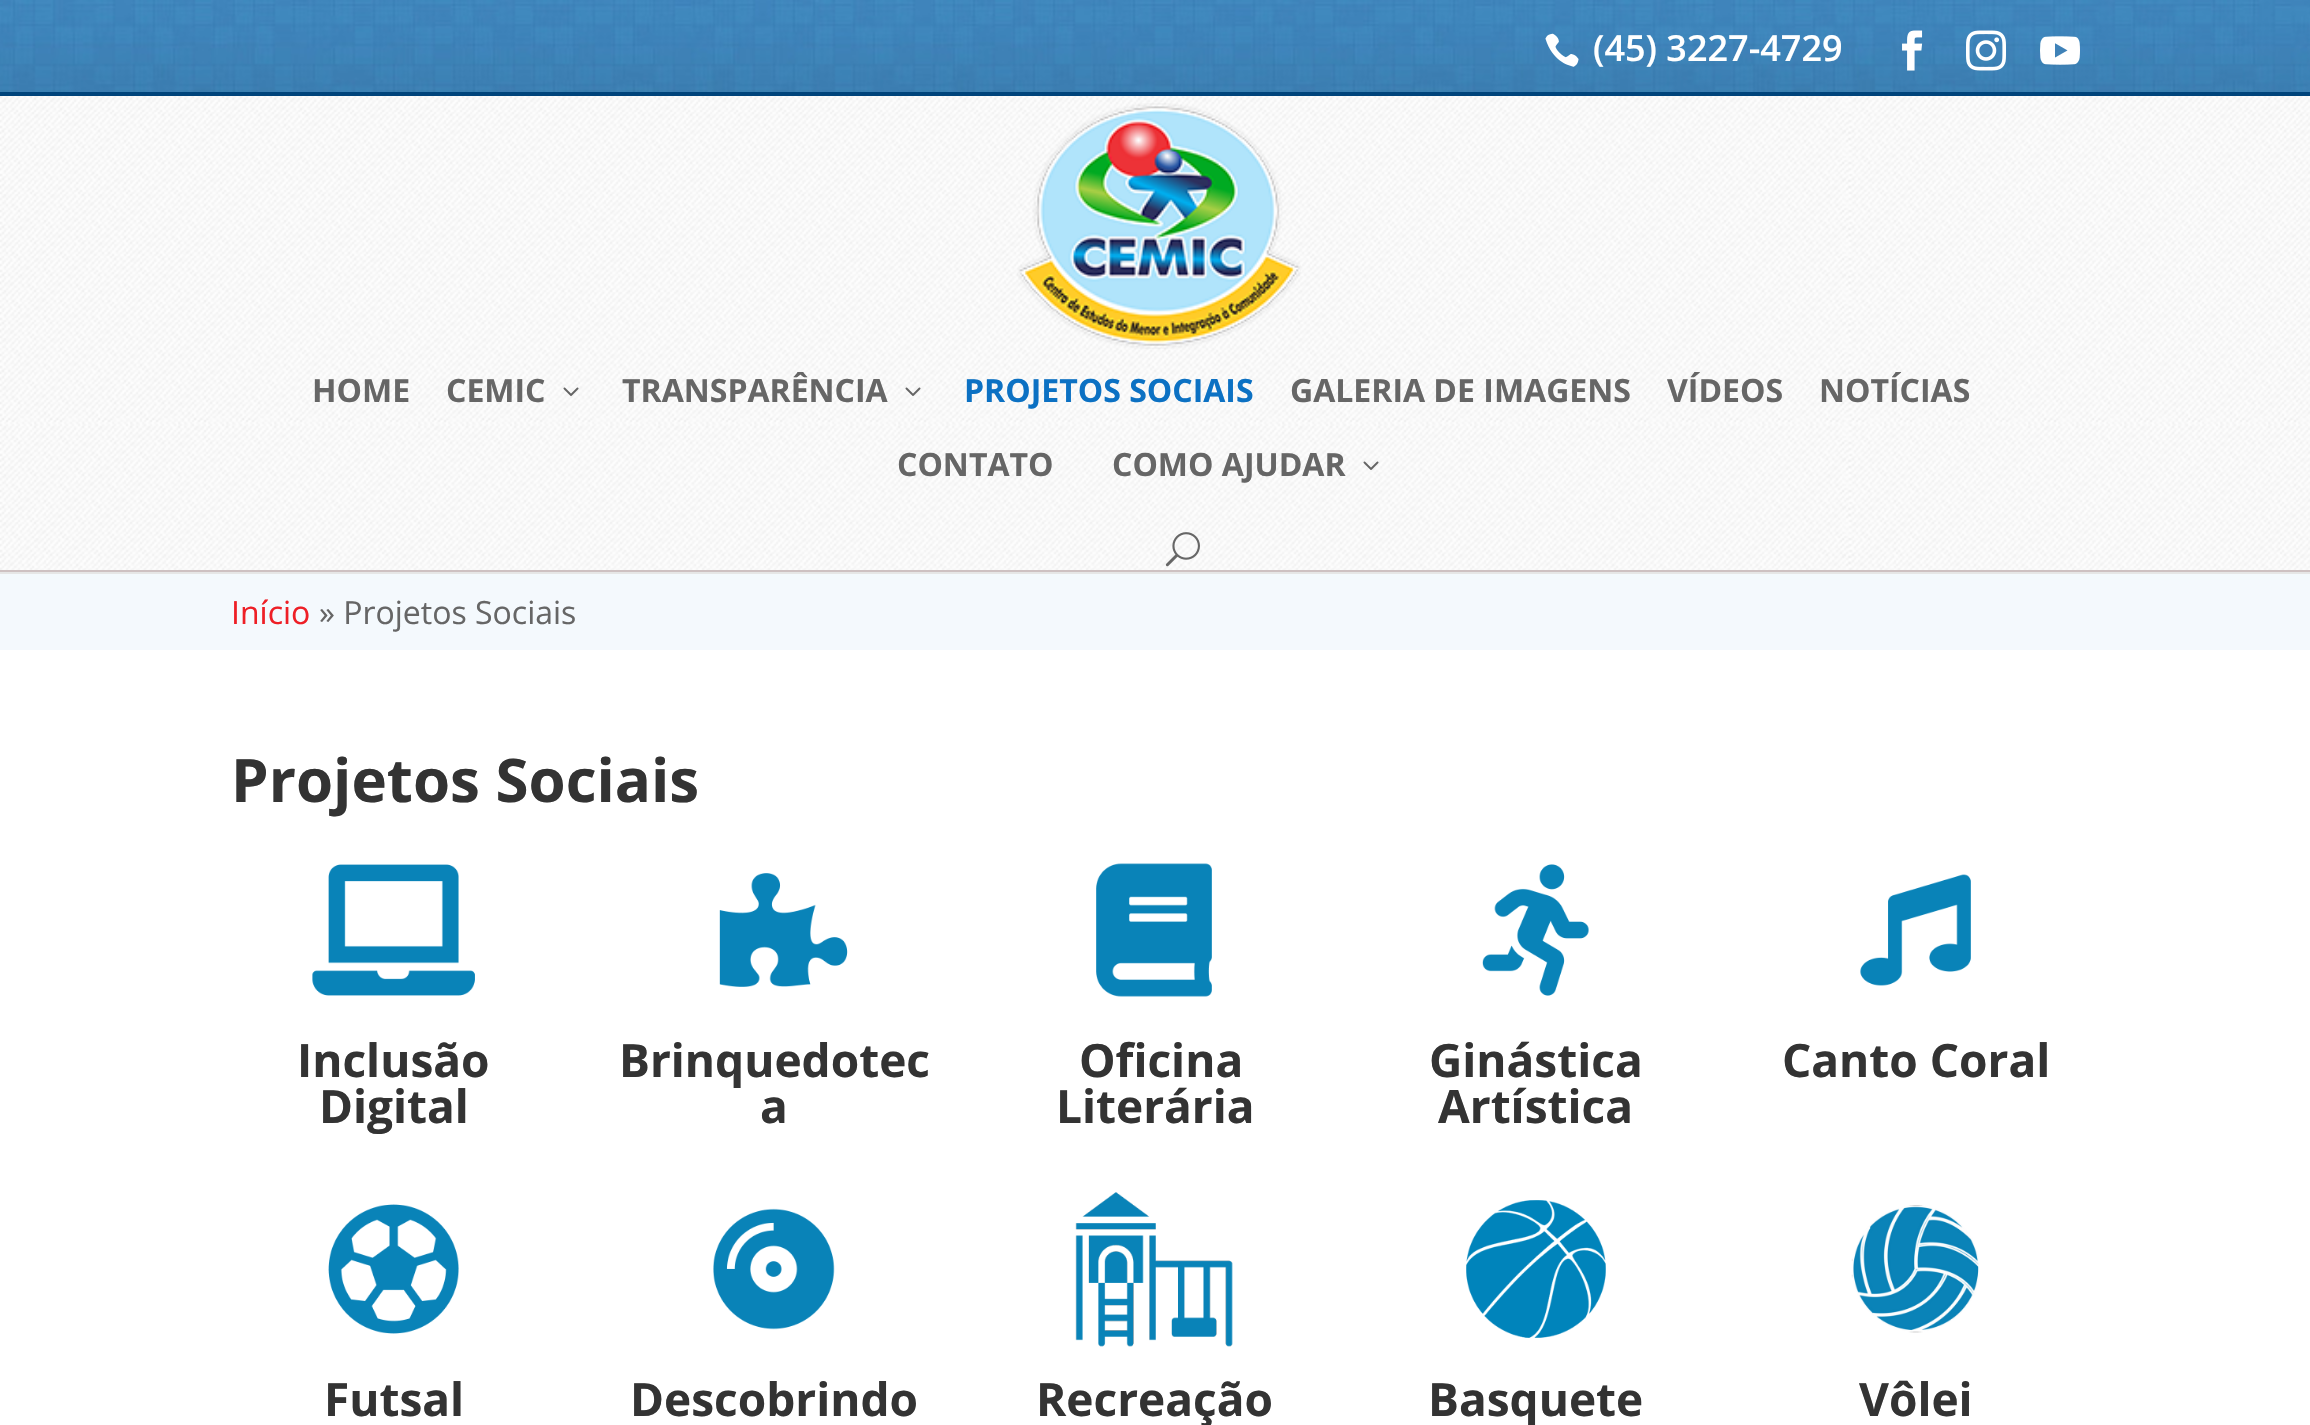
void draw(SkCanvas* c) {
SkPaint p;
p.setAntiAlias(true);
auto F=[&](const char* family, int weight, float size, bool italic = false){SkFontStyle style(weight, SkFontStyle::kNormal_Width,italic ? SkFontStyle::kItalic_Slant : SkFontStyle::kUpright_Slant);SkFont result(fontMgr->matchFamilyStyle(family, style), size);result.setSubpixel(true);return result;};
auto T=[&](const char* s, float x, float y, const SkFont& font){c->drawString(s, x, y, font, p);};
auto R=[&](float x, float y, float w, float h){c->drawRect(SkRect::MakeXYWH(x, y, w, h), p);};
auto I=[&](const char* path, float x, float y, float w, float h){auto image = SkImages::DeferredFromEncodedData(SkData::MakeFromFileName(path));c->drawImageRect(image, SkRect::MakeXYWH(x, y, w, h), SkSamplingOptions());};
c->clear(0xffffffff);
I("1.png",0,0,2310,92);
I("2.png",1545,33,34,34);
auto f1 = F("Open Sans",600,36);
p.setColor(0xffffffff);
T("(45) 3227-4729",1593,61,f1);
I("3.png",1902,30,21,41);
I("4.png",1966,30,40,41);
I("5.png",2040,36,40,29);
p.setColor(0xffe6e6e6);
R(0,572,2310,2);
I("6.png",0,96,2310,474);
p.setColor(0xff00447b);
R(0,92,2310,4);
p.setColor(0xffcec1c2);
R(0,570,2310,2);
I("7.png",1017,103,284,246);
auto f2 = F("Open Sans",700,32);
p.setColor(0xff666666);
T("HOME",312,402,f2);
T("CEMIC",446,402,f2);
I("8.png",563,387,16,9);
T("TRANSPARÊNCIA",622,402,f2);
I("9.png",905,387,16,9);
p.setColor(0xff0c71c3);
T("PROJETOS SOCIAIS",964,402,f2);
p.setColor(0xff666666);
T("GALERIA DE IMAGENS",1290,402,f2);
T("VÍDEOS",1667,402,f2);
T("NOTÍCIAS",1819,402,f2);
T("CONTATO",897,476,f2);
T("COMO AJUDAR",1112,476,f2);
I("10.png",1363,461,16,9);
I("11.png",1165,532,35,35);
p.setColor(0xfff4f9fd);
R(0,574,2310,76);
auto f3 = F("Open Sans",400,32);
p.setColor(0xffee1f26);
T("Início",231,624,f3);
p.setColor(0xff666666);
T("» Projetos Sociais",319,624,f3);
auto f4 = F("Open Sans",700,60);
p.setColor(0xff333333);
T("Projetos Sociais",231,802,f4);
I("12.png",312,864,163,132);
auto f5 = F("Open Sans",700,46);
T("Inclusão",297,1077,f5);
T("Digital",319,1123,f5);
I("13.png",719,873,129,114);
T("Brinquedotec",619,1077,f5);
T("a",760,1123,f5);
I("14.png",1096,863,116,134);
T("Oficina",1079,1077,f5);
T("Literária",1056,1123,f5);
I("15.png",1482,864,107,132);
T("Ginástica",1429,1077,f5);
T("Artística",1438,1123,f5);
I("16.png",1860,874,111,112);
T("Canto Coral",1782,1077,f5);
I("17.png",328,1204,131,130);
T("Futsal",324,1416,f5);
I("18.png",713,1208,122,122);
T("Descobrindo",630,1416,f5);
I("19.png",1075,1192,158,155);
T("Recreação",1036,1416,f5);
I("20.png",1466,1200,140,138);
T("Basquete",1428,1416,f5);
I("21.png",1851,1205,128,128);
T("Vôlei",1859,1416,f5);
}
